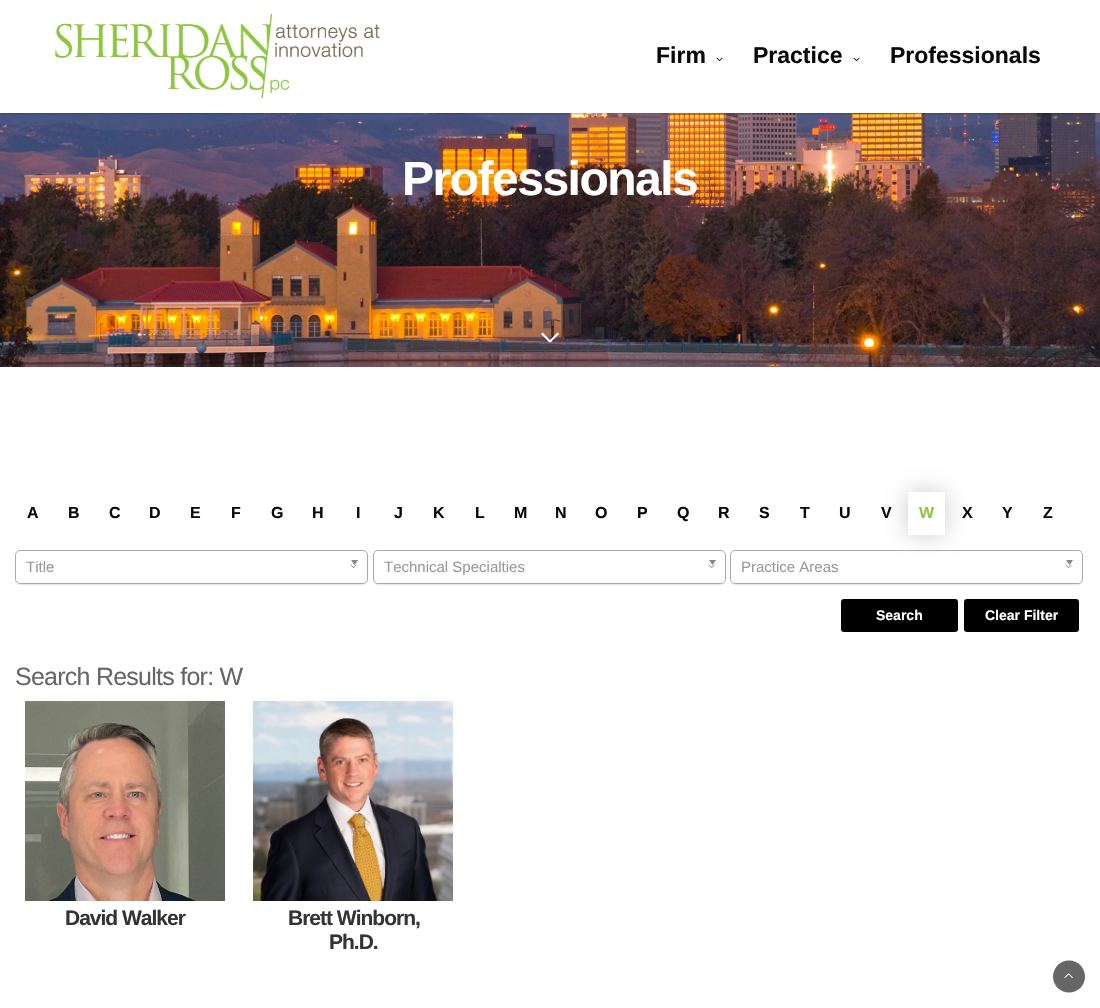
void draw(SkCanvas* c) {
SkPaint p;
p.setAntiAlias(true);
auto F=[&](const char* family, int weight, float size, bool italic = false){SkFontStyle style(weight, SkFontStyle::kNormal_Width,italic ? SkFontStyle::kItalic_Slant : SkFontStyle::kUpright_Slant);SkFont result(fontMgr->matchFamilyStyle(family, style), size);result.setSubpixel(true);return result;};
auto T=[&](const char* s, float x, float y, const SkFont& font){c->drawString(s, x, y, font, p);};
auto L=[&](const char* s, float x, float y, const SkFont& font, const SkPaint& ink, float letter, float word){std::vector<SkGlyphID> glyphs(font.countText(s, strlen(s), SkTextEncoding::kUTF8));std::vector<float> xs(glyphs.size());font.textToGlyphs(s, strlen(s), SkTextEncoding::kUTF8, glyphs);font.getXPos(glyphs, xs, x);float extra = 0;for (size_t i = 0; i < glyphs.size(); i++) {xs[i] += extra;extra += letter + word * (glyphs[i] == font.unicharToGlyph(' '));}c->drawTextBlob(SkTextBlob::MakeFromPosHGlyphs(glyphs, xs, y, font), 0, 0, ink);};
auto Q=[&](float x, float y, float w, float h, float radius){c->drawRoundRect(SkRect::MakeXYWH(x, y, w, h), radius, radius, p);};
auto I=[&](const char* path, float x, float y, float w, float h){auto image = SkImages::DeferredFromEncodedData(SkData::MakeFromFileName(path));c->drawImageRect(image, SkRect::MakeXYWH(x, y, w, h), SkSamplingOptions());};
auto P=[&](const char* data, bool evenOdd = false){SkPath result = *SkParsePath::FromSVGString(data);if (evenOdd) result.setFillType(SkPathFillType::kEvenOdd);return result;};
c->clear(0xffffffff);
I("3.png",0,113,1100,254);
c->save();
c->clipRect(SkRect::MakeXYWH(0,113,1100,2));
p.setColor(0x26000000);
p.setMaskFilter(SkMaskFilter::MakeBlur(kNormal_SkBlurStyle, 1));
c->drawRect(SkRect::MakeXYWH(0,1,1100,113),p);
p.setMaskFilter(nullptr);
p.setColor(0x12000000);
p.setMaskFilter(SkMaskFilter::MakeBlur(kNormal_SkBlurStyle, 1.5));
c->drawRect(SkRect::MakeXYWH(0,1,1100,113),p);
p.setMaskFilter(nullptr);
c->restore();
I("1.png",55,13,325,85);
auto f1 = F("Liberation Sans",700,23);
p.setColor(0xff090909);
T("Firm",656,63,f1);
I("2.png",716,57,7,5);
T("Practice",753,63,f1);
I("2.png",853,57,7,5);
T("Professionals",890,63,f1);
auto f2 = F("Liberation Sans",700,48);
p.setColor(0xffffffff);
L("Professionals",402,195,f2,p,-1.5,0);
c->drawPath(P("M542.5 332.5l8.5 8.5l-1.5 1.5l-8.5-8.5z"),p);
c->drawPath(P("M549 341l8.5-8.5l1.5 1.5l-8.5 8.5z"),p);
auto f3 = F("Liberation Sans",700,16);
p.setColor(0xff090909);
T("A",27,518,f3);
T("B",68,518,f3);
T("C",109,518,f3);
T("D",149,518,f3);
T("E",190,518,f3);
T("F",231,518,f3);
T("G",271,518,f3);
T("H",312,518,f3);
T("I",356,518,f3);
T("J",394,518,f3);
T("K",433,518,f3);
T("L",475,518,f3);
T("M",514,518,f3);
T("N",555,518,f3);
T("O",595,518,f3);
T("P",637,518,f3);
T("Q",677,518,f3);
T("R",718,518,f3);
T("S",759,518,f3);
T("T",800,518,f3);
T("U",839,518,f3);
T("V",881,518,f3);
c->save();
c->clipPath(P("M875 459h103v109h-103zm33 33h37v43h-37z",true),true);
p.setColor(0xffcccccc);
p.setMaskFilter(SkMaskFilter::MakeBlur(kNormal_SkBlurStyle, 10.5));
c->drawRect(SkRect::MakeXYWH(908,492,37,43),p);
p.setMaskFilter(nullptr);
c->restore();
p.setColor(0xff92c544);
T("W",919,518,f3);
p.setColor(0xff090909);
T("X",962,518,f3);
T("Y",1002,518,f3);
T("Z",1043,518,f3);
c->save();
c->clipPath(P("M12 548h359v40h-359zm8 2h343c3 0 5 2 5 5v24c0 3-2 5-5 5h-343c-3 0-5-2-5-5v-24c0-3 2-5 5-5z",true),true);
p.setColor(0x1a000000);
p.setMaskFilter(SkMaskFilter::MakeBlur(kNormal_SkBlurStyle, .5));
c->drawRoundRect(SkRect::MakeXYWH(15,551,353,34),5,5,p);
p.setMaskFilter(nullptr);
c->restore();
p.setStroke(true);
p.setStrokeWidth(1);
p.setColor(0xffaaaaaa);
c->drawRoundRect(SkRect::MakeXYWH(15.5,550.5,352,33),4.5,4.5,p);
auto f4 = F("Liberation Sans",400,15);
p.setStroke(false);
p.setColor(0xff999999);
T("Title",26,572,f4);
I("4.png",350,564,7,5);
I("5.png",351,560,7,6);
c->save();
c->clipPath(P("M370 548h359v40h-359zm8 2h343c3 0 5 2 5 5v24c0 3-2 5-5 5h-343c-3 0-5-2-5-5v-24c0-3 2-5 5-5z",true),true);
p.setColor(0x1a000000);
p.setMaskFilter(SkMaskFilter::MakeBlur(kNormal_SkBlurStyle, .5));
c->drawRoundRect(SkRect::MakeXYWH(373,551,353,34),5,5,p);
p.setMaskFilter(nullptr);
c->restore();
p.setStroke(true);
p.setColor(0xffaaaaaa);
c->drawRoundRect(SkRect::MakeXYWH(373.5,550.5,352,33),4.5,4.5,p);
p.setStroke(false);
p.setColor(0xff999999);
T("Technical Specialties",384,572,f4);
I("4.png",708,564,7,5);
I("5.png",709,560,7,6);
c->save();
c->clipPath(P("M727 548h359v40h-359zm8 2h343c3 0 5 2 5 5v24c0 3-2 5-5 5h-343c-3 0-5-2-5-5v-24c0-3 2-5 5-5z",true),true);
p.setColor(0x1a000000);
p.setMaskFilter(SkMaskFilter::MakeBlur(kNormal_SkBlurStyle, .5));
c->drawRoundRect(SkRect::MakeXYWH(730,551,353,34),5,5,p);
p.setMaskFilter(nullptr);
c->restore();
p.setStroke(true);
p.setColor(0xffaaaaaa);
c->drawRoundRect(SkRect::MakeXYWH(730.5,550.5,352,33),4.5,4.5,p);
p.setStroke(false);
p.setColor(0xff999999);
T("Practice Areas",741,572,f4);
I("4.png",1065,564,7,5);
I("5.png",1066,560,7,6);
p.setColor(0xff000000);
Q(841,599,117,33,3);
auto f5 = F("Liberation Sans",700,14);
p.setColor(0xffffffff);
T("Search",876,620,f5);
p.setColor(0xff000000);
Q(964,599,115,33,3);
p.setColor(0xffffffff);
T("Clear Filter",985,620,f5);
auto f6 = F("Liberation Sans",400,25);
p.setColor(0xff666666);
L("Search Results for: W",15,685,f6,p,-.75,0);
I("6.png",25,701,200,200);
auto f7 = F("Liberation Sans",700,21);
p.setColor(0xff343434);
L("David Walker",65,925,f7,p,-1,0);
I("7.png",253,701,200,200);
L("Brett Winborn,",288,925,f7,p,-1,0);
L("Ph.D.",329,949,f7,p,-1,0);
p.setColor(0xff666666);
c->drawPath(P("M1085 976.5c0 9-7 16-16 16c-9 0-16-7-16-16c0-8.5 7-16 16-16c9 0 16 7.5 16 16z"),p);
I("8.png",1064,973,9,5);
}
